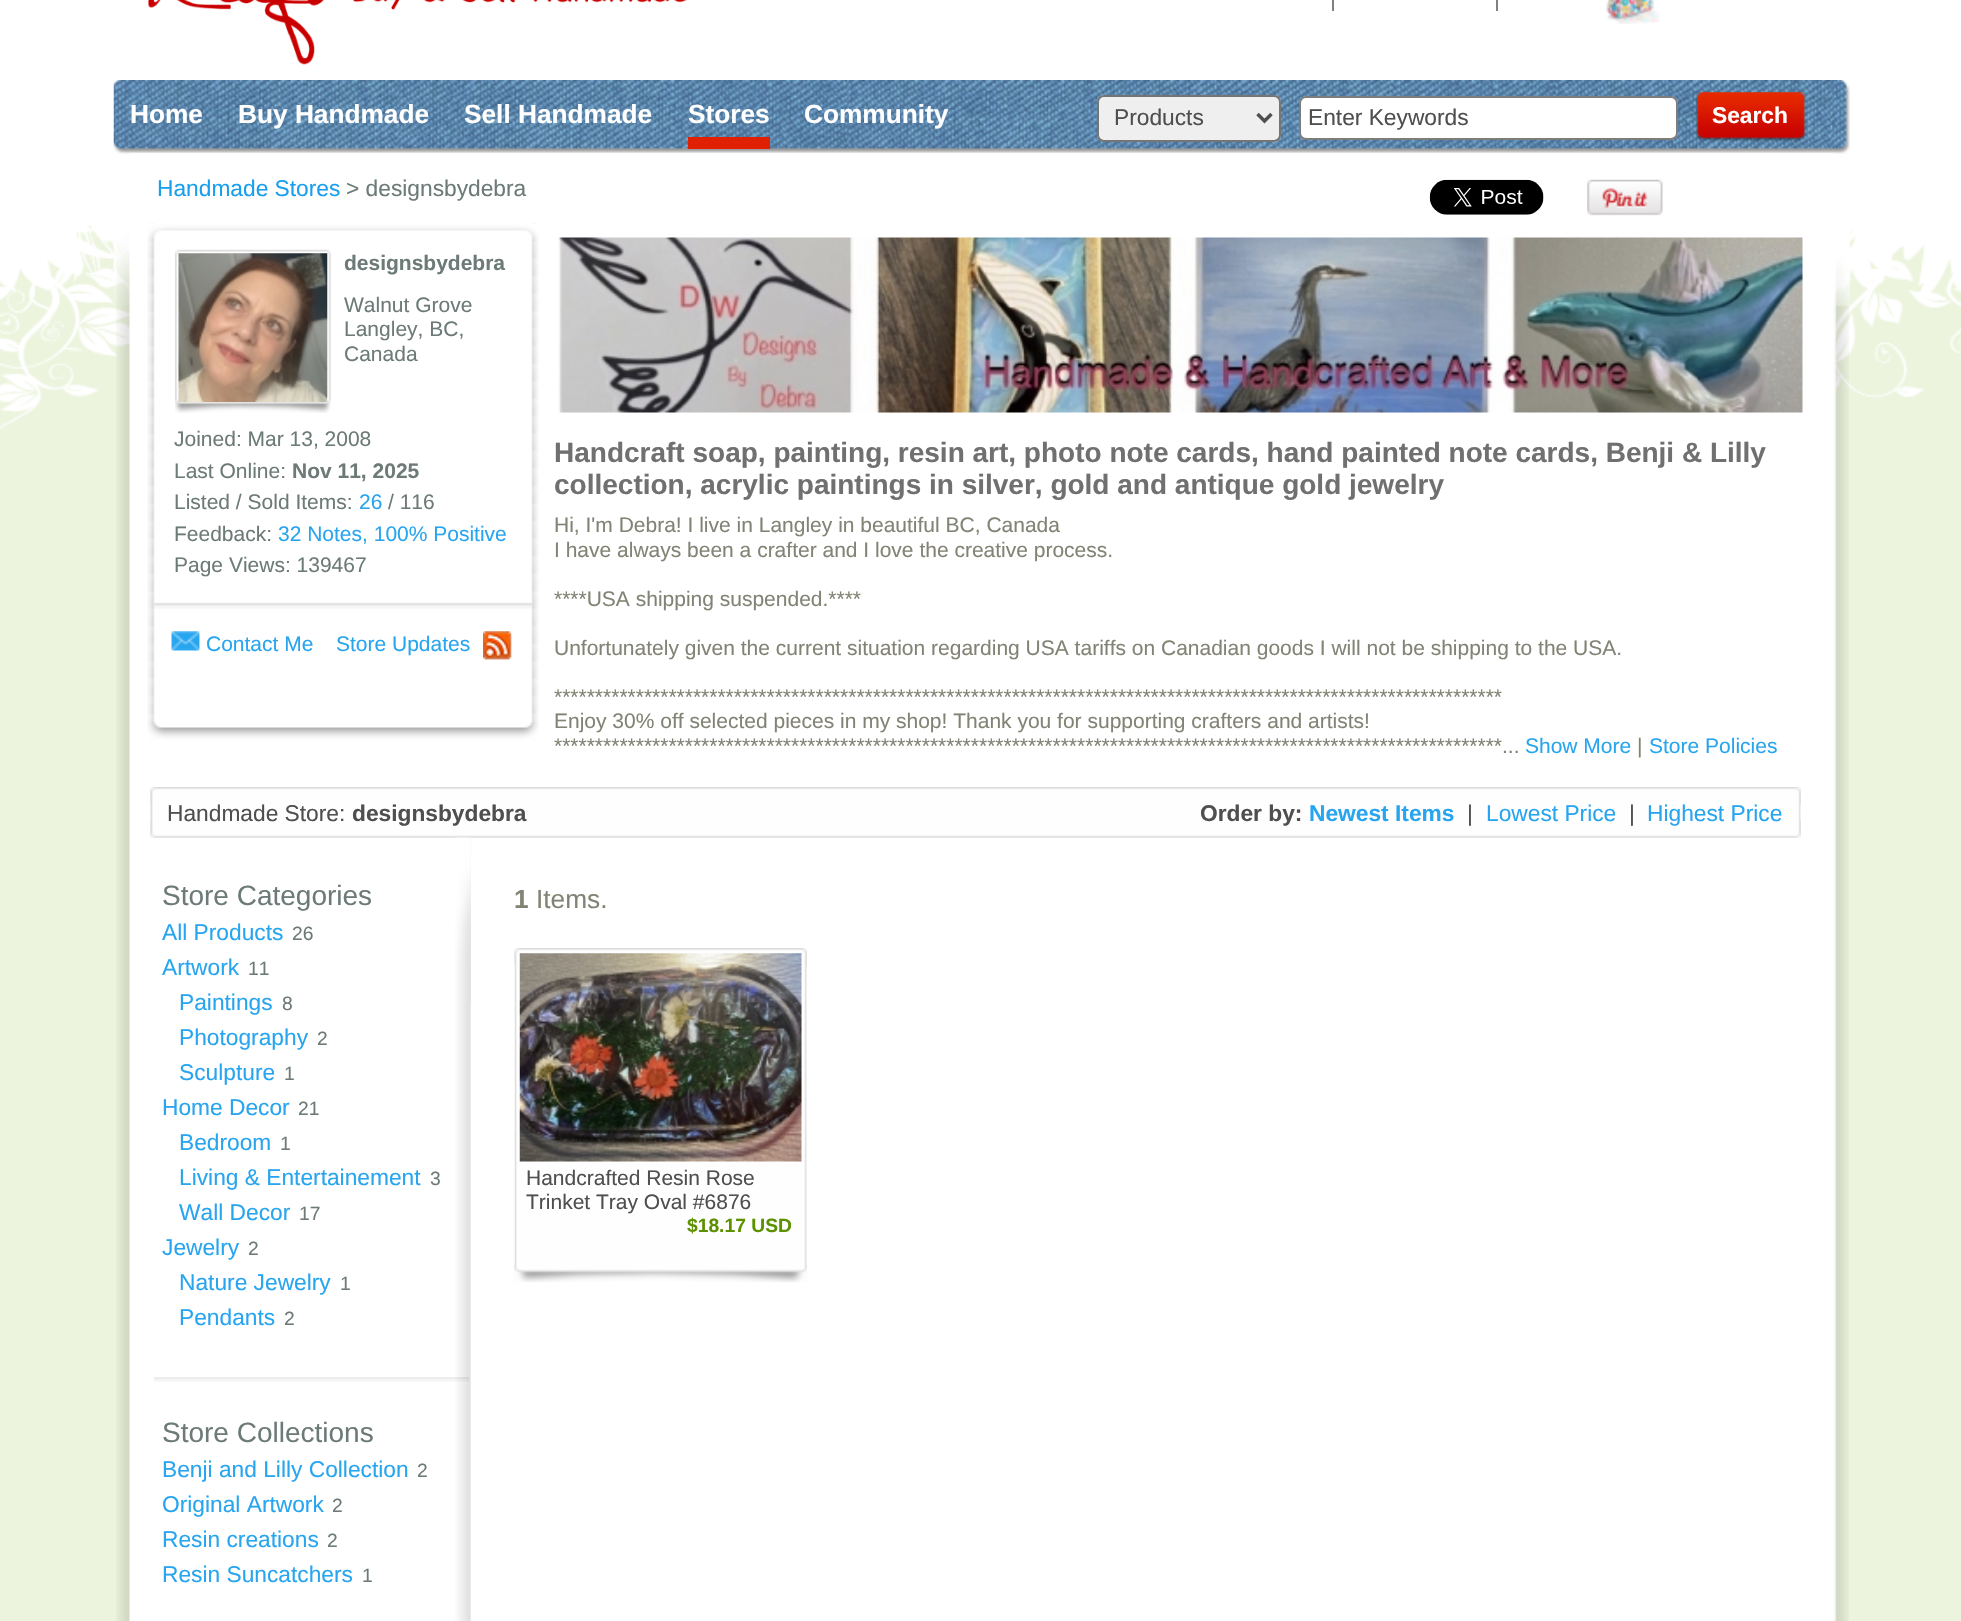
void draw(SkCanvas* c) {
SkPaint p;
p.setAntiAlias(true);
auto F=[&](const char* family, int weight, float size, bool italic = false){SkFontStyle style(weight, SkFontStyle::kNormal_Width,italic ? SkFontStyle::kItalic_Slant : SkFontStyle::kUpright_Slant);SkFont result(fontMgr->matchFamilyStyle(family, style), size);result.setSubpixel(true);return result;};
auto T=[&](const char* s, float x, float y, const SkFont& font){c->drawString(s, x, y, font, p);};
auto R=[&](float x, float y, float w, float h){c->drawRect(SkRect::MakeXYWH(x, y, w, h), p);};
auto Q=[&](float x, float y, float w, float h, float radius){c->drawRoundRect(SkRect::MakeXYWH(x, y, w, h), radius, radius, p);};
auto I=[&](const char* path, float x, float y, float w, float h){auto image = SkImages::DeferredFromEncodedData(SkData::MakeFromFileName(path));c->drawImageRect(image, SkRect::MakeXYWH(x, y, w, h), SkSamplingOptions());};
auto P=[&](const char* data, bool evenOdd = false){SkPath result = *SkParsePath::FromSVGString(data);if (evenOdd) result.setFillType(SkPathFillType::kEvenOdd);return result;};
c->clear(0xffecf4de);
I("1.png",0,0,1961,458);
I("2.png",147,0,540,65);
p.setColor(0xff808080);
R(1332,0,2,11);
R(1496,0,2,11);
I("3.png",1606,0,54,24);
I("4.png",113,80,1737,74);
auto f1 = F("Liberation Sans",700,26.25);
p.setColor(0xffffffff);
T("Home",130,123,f1);
T("Buy Handmade",238,123,f1);
T("Sell Handmade",464,123,f1);
p.setColor(0xffe02000);
R(688,137,82,12);
p.setColor(0xffffffff);
T("Stores",688,123,f1);
T("Community",804,123,f1);
p.setColor(0xffefefef);
Q(1097,95,184,47,7);
p.setStroke(true);
p.setStrokeWidth(2);
p.setColor(0x82000000);
c->drawRoundRect(SkRect::MakeXYWH(1098,96,182,45),6,6,p);
p.setStrokeWidth(3.5);
p.setColor(0xff4f4f4f);
c->drawPath(P("M1257.5 114l7 7l7-7"),p);
auto f2 = F("Liberation Sans",400,22.75);
p.setStroke(false);
T("Products",1114,125,f2);
p.setColor(0xffffffff);
Q(1299,96,379,44,7);
p.setStroke(true);
p.setStrokeWidth(2);
p.setColor(0x82000000);
c->drawRoundRect(SkRect::MakeXYWH(1300,97,377,42),6,6,p);
p.setStroke(false);
p.setColor(0xff4f4f4f);
T("Enter Keywords",1308,125,f2);
I("5.png",1695,92,111,50);
auto f3 = F("Liberation Sans",700,22.75);
p.setColor(0xffffffff);
T("Search",1712,123,f3);
I("6.png",116,153,1733,1468);
I("7.png",113,153,1737,153);
p.setColor(0xff199fee);
T("Handmade Stores",157,196,f2);
p.setColor(0xff6d7b78);
T("> designsbydebra",346,196,f2);
I("8.png",1429,179,115,36);
I("9.png",1587,179,76,37);
I("10.png",147,223,392,517);
I("11.png",147,223,392,17);
I("12.png",147,722,392,18);
I("13.png",175,249,156,164);
I("14.png",178,253,150,149);
auto f4 = F("Liberation Sans",700,21);
T("designsbydebra",344,270,f4);
auto f5 = F("Liberation Sans",400,21);
T("Walnut Grove",344,312,f5);
T("Langley, BC,",344,336,f5);
T("Canada",344,361,f5);
I("15.png",154,602,378,7);
T("Joined: Mar 13, 2008",174,446,f5);
T("Last Online:",174,478,f5);
T("Nov 11, 2025",292,478,f4);
T("Listed / Sold Items:",174,509,f5);
p.setColor(0xff28a5ef);
T("26",359,509,f5);
p.setColor(0xff6d7b78);
T("/ 116",388,509,f5);
T("Feedback:",174,541,f5);
p.setColor(0xff28a5ef);
T("32 Notes, 100% Positive",278,541,f5);
p.setColor(0xff6d7b78);
T("Page Views: 139467",174,572,f5);
I("16.png",171,631,29,20);
p.setColor(0xff28a5ef);
T("Contact Me",206,651,f5);
T("Store Updates",336,651,f5);
I("17.png",483,631,29,29);
I("18.png",558,237,1245,176);
auto f6 = F("Liberation Sans",700,28);
p.setColor(0xff707070);
T("Handcraft soap, painting, resin art, photo note cards, hand painted note cards, Benji & Lilly",554,462,f6);
T("collection, acrylic paintings in silver, gold and antique gold jewelry",554,494,f6);
p.setColor(0xff838375);
T("Hi, I'm Debra! I live in Langley in beautiful BC, Canada",554,532,f5);
T("I have always been a crafter and I love the creative process.",554,557,f5);
T("****USA shipping suspended.****",554,606,f5);
T("Unfortunately given the current situation regarding USA tariffs on Canadian goods I will not be shipping to the USA.",554,655,f5);
T("********************************************************************************************************************",554,704,f5);
T("Enjoy 30% off selected pieces in my shop! Thank you for supporting crafters and artists!",554,728,f5);
T("********************************************************************************************************************...",554,753,f5);
p.setColor(0xff28a5ef);
T("Show More",1525,753,f5);
p.setColor(0xff838375);
T("|",1637,753,f5);
p.setColor(0xff28a5ef);
T("Store Policies",1649,753,f5);
I("19.png",150,787,1651,51);
I("20.png",150,787,1651,18);
I("21.png",150,820,1651,18);
p.setColor(0xff4f4f4f);
T("Handmade Store:",167,821,f2);
T("designsbydebra",352,821,f3);
T("Order by:",1200,821,f3);
p.setColor(0xff28a5ef);
T("Newest Items",1309,821,f3);
p.setColor(0xff4f4f4f);
T("|",1467,821,f2);
p.setColor(0xff28a5ef);
T("Lowest Price",1486,821,f2);
p.setColor(0xff4f4f4f);
T("|",1629,821,f2);
p.setColor(0xff28a5ef);
T("Highest Price",1647,821,f2);
I("22.png",455,837,16,784);
I("23.png",455,837,16,167);
I("24.png",154,1377,315,5);
auto f7 = F("Liberation Sans",400,28);
p.setColor(0xff6d7b78);
T("Store Categories",162,905,f7);
p.setColor(0xff28a5ef);
T("All Products",162,940,f2);
auto f8 = F("Liberation Sans",400,19.25);
p.setColor(0xff6d7b78);
T("26",292,940,f8);
p.setColor(0xff28a5ef);
T("Artwork",162,975,f2);
p.setColor(0xff6d7b78);
T("11",248,975,f8);
p.setColor(0xff28a5ef);
T("Paintings",179,1010,f2);
p.setColor(0xff6d7b78);
T("8",282,1010,f8);
p.setColor(0xff28a5ef);
T("Photography",179,1045,f2);
p.setColor(0xff6d7b78);
T("2",317,1045,f8);
p.setColor(0xff28a5ef);
T("Sculpture",179,1080,f2);
p.setColor(0xff6d7b78);
T("1",284,1080,f8);
p.setColor(0xff28a5ef);
T("Home Decor",162,1115,f2);
p.setColor(0xff6d7b78);
T("21",298,1115,f8);
p.setColor(0xff28a5ef);
T("Bedroom",179,1150,f2);
p.setColor(0xff6d7b78);
T("1",280,1150,f8);
p.setColor(0xff28a5ef);
T("Living & Entertainement",179,1185,f2);
p.setColor(0xff6d7b78);
T("3",430,1185,f8);
p.setColor(0xff28a5ef);
T("Wall Decor",179,1220,f2);
p.setColor(0xff6d7b78);
T("17",299,1220,f8);
p.setColor(0xff28a5ef);
T("Jewelry",162,1255,f2);
p.setColor(0xff6d7b78);
T("2",248,1255,f8);
p.setColor(0xff28a5ef);
T("Nature Jewelry",179,1290,f2);
p.setColor(0xff6d7b78);
T("1",340,1290,f8);
p.setColor(0xff28a5ef);
T("Pendants",179,1325,f2);
p.setColor(0xff6d7b78);
T("2",284,1325,f8);
T("Store Collections",162,1442,f7);
p.setColor(0xff28a5ef);
T("Benji and Lilly Collection",162,1477,f2);
p.setColor(0xff6d7b78);
T("2",417,1477,f8);
p.setColor(0xff28a5ef);
T("Original Artwork",162,1512,f2);
p.setColor(0xff6d7b78);
T("2",332,1512,f8);
p.setColor(0xff28a5ef);
T("Resin creations",162,1547,f2);
p.setColor(0xff6d7b78);
T("2",327,1547,f8);
p.setColor(0xff28a5ef);
T("Resin Suncatchers",162,1582,f2);
p.setColor(0xff6d7b78);
T("1",362,1582,f8);
p.setColor(0xff838375);
T("1",514,908,f1);
auto f9 = F("Liberation Sans",400,26.25);
T("Items.",536,908,f9);
I("25.png",514,948,293,335);
I("26.png",514,948,293,18);
I("27.png",514,1265,293,18);
I("28.png",519,953,283,209);
p.setColor(0xff4f4f4f);
T("Handcrafted Resin Rose",526,1185,f5);
T("Trinket Tray Oval #6876",526,1209,f5);
auto f10 = F("Liberation Sans",700,19.25);
p.setColor(0xff5c9100);
T("$18.17 USD",687,1232,f10);
}
